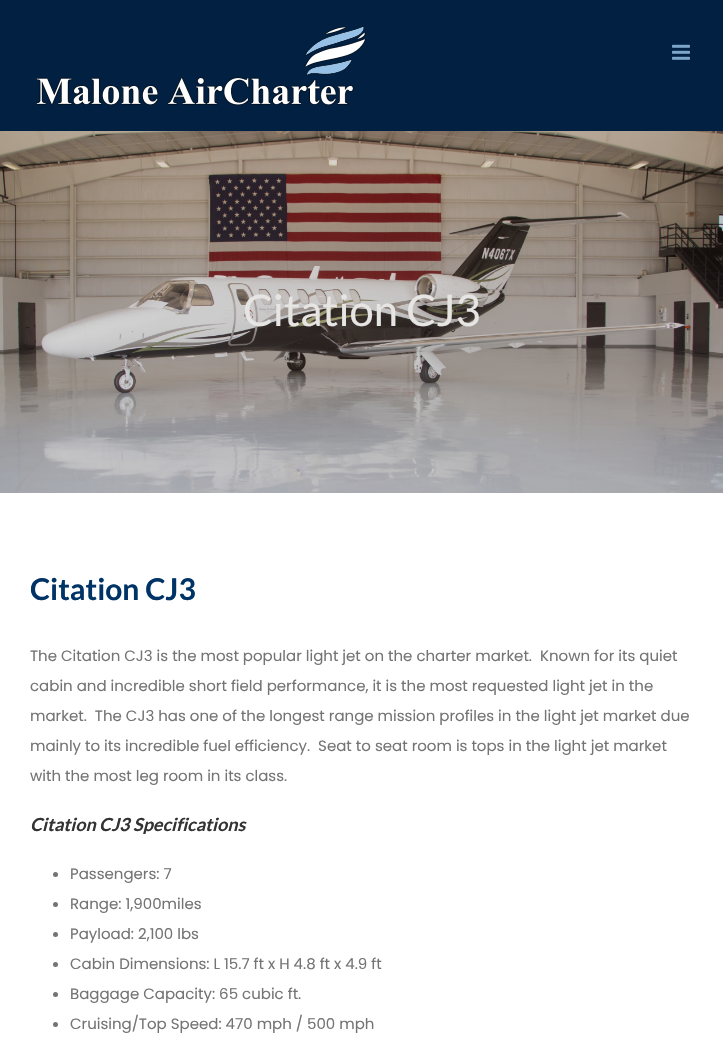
void draw(SkCanvas* c) {
SkPaint p;
p.setAntiAlias(true);
auto F=[&](const char* family, int weight, float size, bool italic = false){SkFontStyle style(weight, SkFontStyle::kNormal_Width,italic ? SkFontStyle::kItalic_Slant : SkFontStyle::kUpright_Slant);SkFont result(fontMgr->matchFamilyStyle(family, style), size);result.setSubpixel(true);return result;};
auto T=[&](const char* s, float x, float y, const SkFont& font){c->drawString(s, x, y, font, p);};
auto R=[&](float x, float y, float w, float h){c->drawRect(SkRect::MakeXYWH(x, y, w, h), p);};
auto I=[&](const char* path, float x, float y, float w, float h){auto image = SkImages::DeferredFromEncodedData(SkData::MakeFromFileName(path));c->drawImageRect(image, SkRect::MakeXYWH(x, y, w, h), SkSamplingOptions());};
c->clear(0xffffffff);
p.setColor(0xff012042);
R(0,0,723,131);
I("1.png",36,26,330,80);
I("2.png",672,44,18,16);
I("3.png",0,131,723,362);
auto f1 = F("Lato",400,43.5);
p.setColor(0xffe6e5e4);
T("Citation CJ3",243,326,f1);
auto f2 = F("Lato",700,30);
p.setColor(0xff003366);
T("Citation CJ3",30,600,f2);
auto f3 = F("Poppins",400,15);
p.setColor(0xff747474);
T("The Citation CJ3 is the most popular light jet on the charter market.  Known for its quiet",30,661,f3);
T("cabin and incredible short field performance, it is the most requested light jet in the",30,691,f3);
T("market.  The CJ3 has one of the longest range mission profiles in the light jet market due",30,721,f3);
T("mainly to its incredible fuel efficiency.  Seat to seat room is tops in the light jet market",30,751,f3);
T("with the most leg room in its class.",30,781,f3);
auto f4 = F("Lato",700,18,true);
p.setColor(0xff333333);
T("Citation CJ3 Specifications",30,831,f4);
p.setColor(0xff747474);
c->drawCircle(55.5,874.5,2.5,p);
T("Passengers: 7",70,879,f3);
c->drawCircle(55.5,904.5,2.5,p);
T("Range: 1,900miles",70,909,f3);
c->drawCircle(55.5,934.5,2.5,p);
T("Payload: 2,100 lbs",70,939,f3);
c->drawCircle(55.5,964.5,2.5,p);
T("Cabin Dimensions: L 15.7 ft x H 4.8 ft x 4.9 ft",70,969,f3);
c->drawCircle(55.5,994.5,2.5,p);
T("Baggage Capacity: 65 cubic ft.",70,999,f3);
c->drawCircle(55.5,1024.5,2.5,p);
T("Cruising/Top Speed: 470 mph / 500 mph",70,1029,f3);
}
